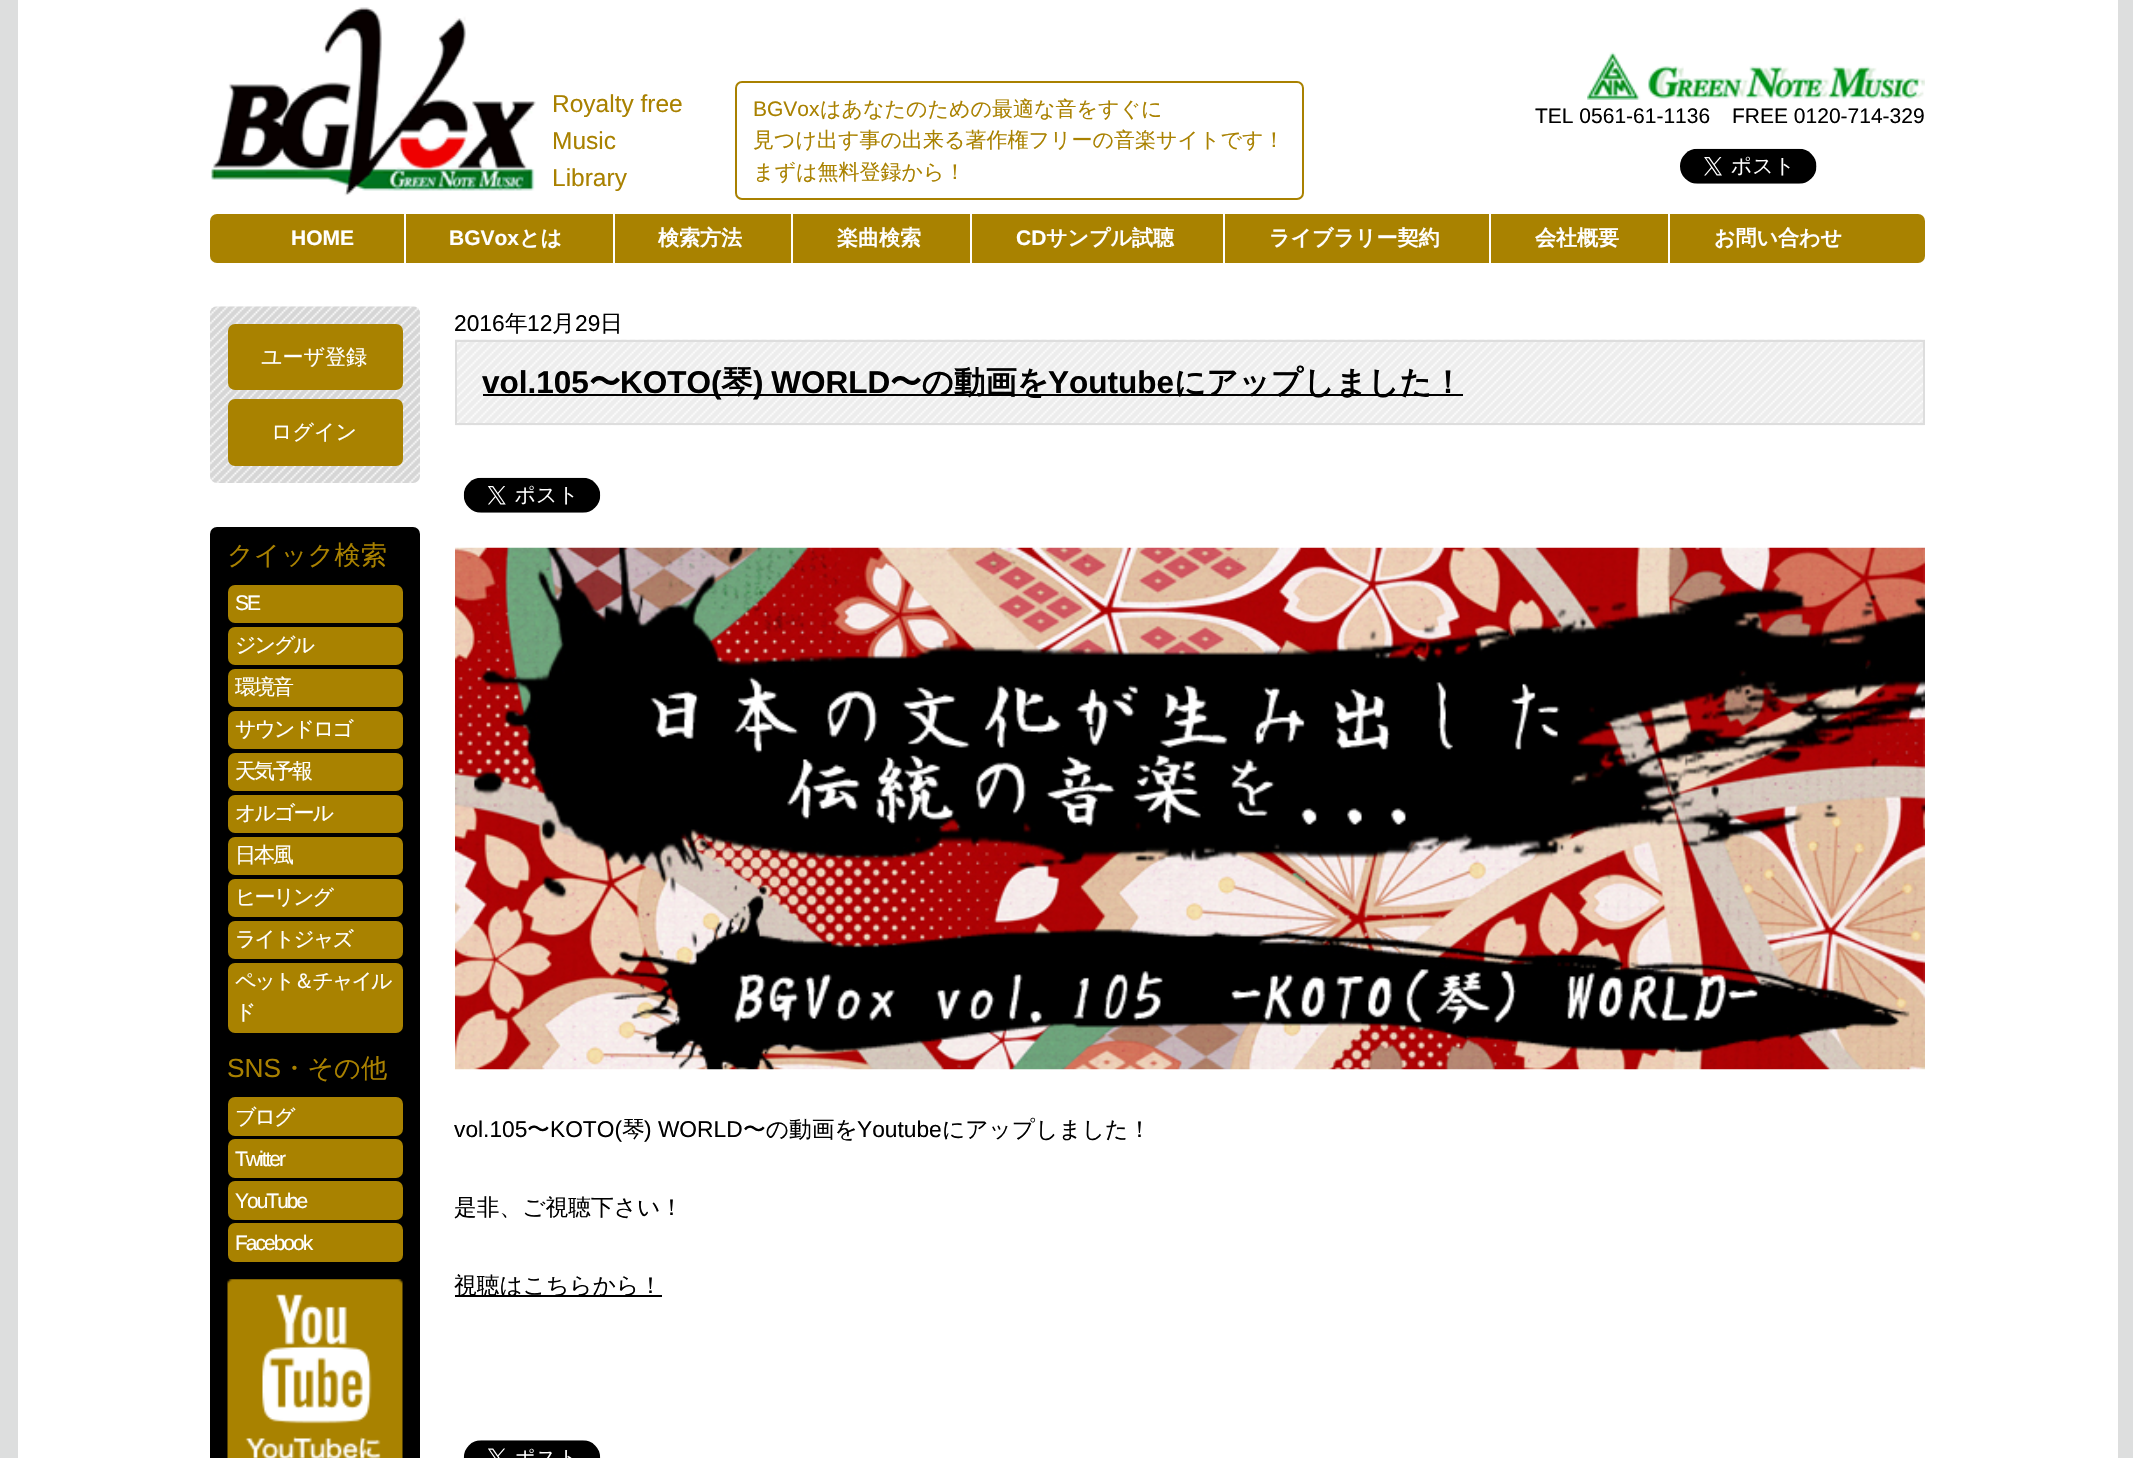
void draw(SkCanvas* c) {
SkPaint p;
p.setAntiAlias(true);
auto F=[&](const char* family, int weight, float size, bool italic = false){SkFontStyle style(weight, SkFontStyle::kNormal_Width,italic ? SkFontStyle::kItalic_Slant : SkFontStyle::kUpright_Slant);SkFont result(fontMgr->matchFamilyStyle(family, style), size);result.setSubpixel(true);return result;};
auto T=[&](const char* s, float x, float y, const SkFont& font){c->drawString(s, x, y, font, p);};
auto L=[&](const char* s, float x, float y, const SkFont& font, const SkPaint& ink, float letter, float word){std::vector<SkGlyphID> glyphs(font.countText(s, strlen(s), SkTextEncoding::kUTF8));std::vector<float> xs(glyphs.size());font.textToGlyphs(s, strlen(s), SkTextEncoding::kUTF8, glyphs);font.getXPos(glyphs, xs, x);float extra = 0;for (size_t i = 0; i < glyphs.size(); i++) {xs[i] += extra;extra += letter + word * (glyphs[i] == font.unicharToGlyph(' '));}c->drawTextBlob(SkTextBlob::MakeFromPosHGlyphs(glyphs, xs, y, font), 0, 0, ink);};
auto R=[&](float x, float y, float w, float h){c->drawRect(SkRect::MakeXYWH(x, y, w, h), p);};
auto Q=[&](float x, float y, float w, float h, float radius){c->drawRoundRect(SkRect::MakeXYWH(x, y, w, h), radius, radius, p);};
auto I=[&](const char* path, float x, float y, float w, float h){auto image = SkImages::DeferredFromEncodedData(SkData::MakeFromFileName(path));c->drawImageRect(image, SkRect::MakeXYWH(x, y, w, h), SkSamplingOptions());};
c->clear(0xffdddede);
p.setColor(0xffffffff);
R(18,0,2100,1458);
I("1.png",210,7,326,189);
auto f1 = F("Liberation Sans",400,24.5);
p.setColor(0xffa98100);
T("Royalty free",552,112,f1);
T("Music",552,149,f1);
T("Library",552,186,f1);
p.setStroke(true);
p.setStrokeWidth(2);
c->drawRoundRect(SkRect::MakeXYWH(736,82,567,117),6,6,p);
auto f2 = F("Liberation Sans",400,21);
p.setStroke(false);
T("BGVox",753,116,f2);
auto f3 = F("WenQuanYi Zen Hei",500,21);
T("はあなたのための最適な音をすぐに",820,116,f3);
T("見つけ出す事の出来る著作権フリーの音楽サイトです！",753,147,f3);
T("まずは無料登録から！",753,179,f3);
I("2.png",1587,52,338,48);
p.setColor(0xff000000);
T("TEL 0561-61-1136",1535,123,f2);
T("FREE 0120-714-329",1732,123,f2);
I("3.png",1680,148,137,36);
p.setColor(0xffa98200);
Q(210,214,1715,49,7);
auto f4 = F("Liberation Sans",700,21);
p.setColor(0xffffffff);
T("HOME",291,245,f4);
R(404,214,2,49);
T("BGVox",449,245,f4);
auto f5 = F("WenQuanYi Zen Hei",700,21);
T("とは",519,245,f5);
R(613,214,2,49);
T("検索方法",658,245,f5);
R(791,214,2,49);
T("楽曲検索",837,245,f5);
R(970,214,2,49);
T("CD",1016,245,f4);
T("サンプル試聴",1046,245,f5);
R(1223,214,2,49);
T("ライブラリー契約",1269,245,f5);
R(1489,214,2,49);
T("会社概要",1535,245,f5);
R(1668,214,2,49);
T("お問い合わせ",1714,245,f5);
I("4.png",210,306,210,177);
p.setColor(0xffa98200);
Q(228,324,175,66,7);
p.setColor(0xffffffff);
T("ユーザ登録",261,364,f3);
p.setColor(0xffa98200);
Q(228,399,175,67,7);
p.setColor(0xffffffff);
T("ログイン",271,439,f3);
p.setColor(0xff000000);
Q(210,527,210,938,7);
auto f6 = F("WenQuanYi Zen Hei",500,26.25);
p.setColor(0xffa98100);
T("クイック検索",227,564,f6);
p.setColor(0xffa98200);
Q(228,585,175,38,7);
p.setColor(0xffffffff);
L("SE",235,610,f2,p,-2,0);
p.setColor(0xffa98200);
Q(228,627,175,38,7);
p.setColor(0xffffffff);
L("ジングル",235,652,f3,p,-2,0);
p.setColor(0xffa98200);
Q(228,669,175,38,7);
p.setColor(0xffffffff);
L("環境音",235,694,f3,p,-2,0);
p.setColor(0xffa98200);
Q(228,711,175,38,7);
p.setColor(0xffffffff);
L("サウンドロゴ",235,736,f3,p,-2,0);
p.setColor(0xffa98200);
Q(228,753,175,38,7);
p.setColor(0xffffffff);
L("天気予報",235,778,f3,p,-2,0);
p.setColor(0xffa98200);
Q(228,795,175,38,7);
p.setColor(0xffffffff);
L("オルゴール",235,820,f3,p,-2,0);
p.setColor(0xffa98200);
Q(228,837,175,38,7);
p.setColor(0xffffffff);
L("日本風",235,862,f3,p,-2,0);
p.setColor(0xffa98200);
Q(228,879,175,38,7);
p.setColor(0xffffffff);
L("ヒーリング",235,904,f3,p,-2,0);
p.setColor(0xffa98200);
Q(228,921,175,38,7);
p.setColor(0xffffffff);
L("ライトジャズ",235,946,f3,p,-2,0);
p.setColor(0xffa98200);
Q(228,963,175,70,7);
p.setColor(0xffffffff);
L("ペット＆チャイル",235,988,f3,p,-2,0);
L("ド",235,1019,f3,p,-2,0);
auto f7 = F("Liberation Sans",400,26.25);
p.setColor(0xffa98100);
T("SNS",227,1077,f7);
T("・その他",281,1077,f6);
p.setColor(0xffa98200);
Q(228,1097,175,39,7);
p.setColor(0xffffffff);
L("ブログ",235,1124,f3,p,-2,0);
p.setColor(0xffa98200);
Q(228,1139,175,39,7);
p.setColor(0xffffffff);
L("Twitter",235,1166,f2,p,-2,0);
p.setColor(0xffa98200);
Q(228,1181,175,39,7);
p.setColor(0xffffffff);
L("YouTube",235,1208,f2,p,-2,0);
p.setColor(0xffa98200);
Q(228,1223,175,39,7);
p.setColor(0xffffffff);
L("Facebook",235,1250,f2,p,-2,0);
I("5.png",227,1279,176,179);
auto f8 = F("Liberation Sans",400,22.75);
p.setColor(0xff000000);
T("2016",454,331,f8);
auto f9 = F("WenQuanYi Zen Hei",500,22.75);
T("年",505,331,f9);
T("12",527,331,f8);
T("月",552,331,f9);
T("29",575,331,f8);
T("日",600,331,f9);
I("6.png",455,339,1470,87);
p.setStroke(true);
p.setColor(0xffdddddd);
c->drawRect(SkRect::MakeXYWH(456,341,1468,83),p);
auto f10 = F("Liberation Sans",700,31.5);
p.setStroke(false);
p.setColor(0xff000000);
T("vol.105",482,393,f10);
auto f11 = F("WenQuanYi Zen Hei",700,31.5);
T("〜",589,393,f11);
R(483,394,980,2);
T("KOTO(",620,393,f10);
T("琴",721,393,f11);
L(") WORLD",753,393,f10,p,0,-1);
T("〜の動画を",890,393,f11);
T("Youtube",1048,393,f10);
T("にアップしました！",1174,393,f11);
I("7.png",463,477,138,36);
I("8.png",455,547,1470,523);
T("vol.105",454,1137,f8);
T("〜",527,1137,f9);
T("KOTO(",550,1137,f8);
T("琴",622,1137,f9);
T(") WORLD",644,1137,f8);
T("〜の動画を",743,1137,f9);
T("Youtube",857,1137,f8);
T("にアップしました！",942,1137,f9);
T("是非、ご視聴下さい！",454,1215,f9);
R(455,1295,207,2);
T("視聴はこちらから！",454,1293,f9);
I("9.png",463,1440,138,18);
}
